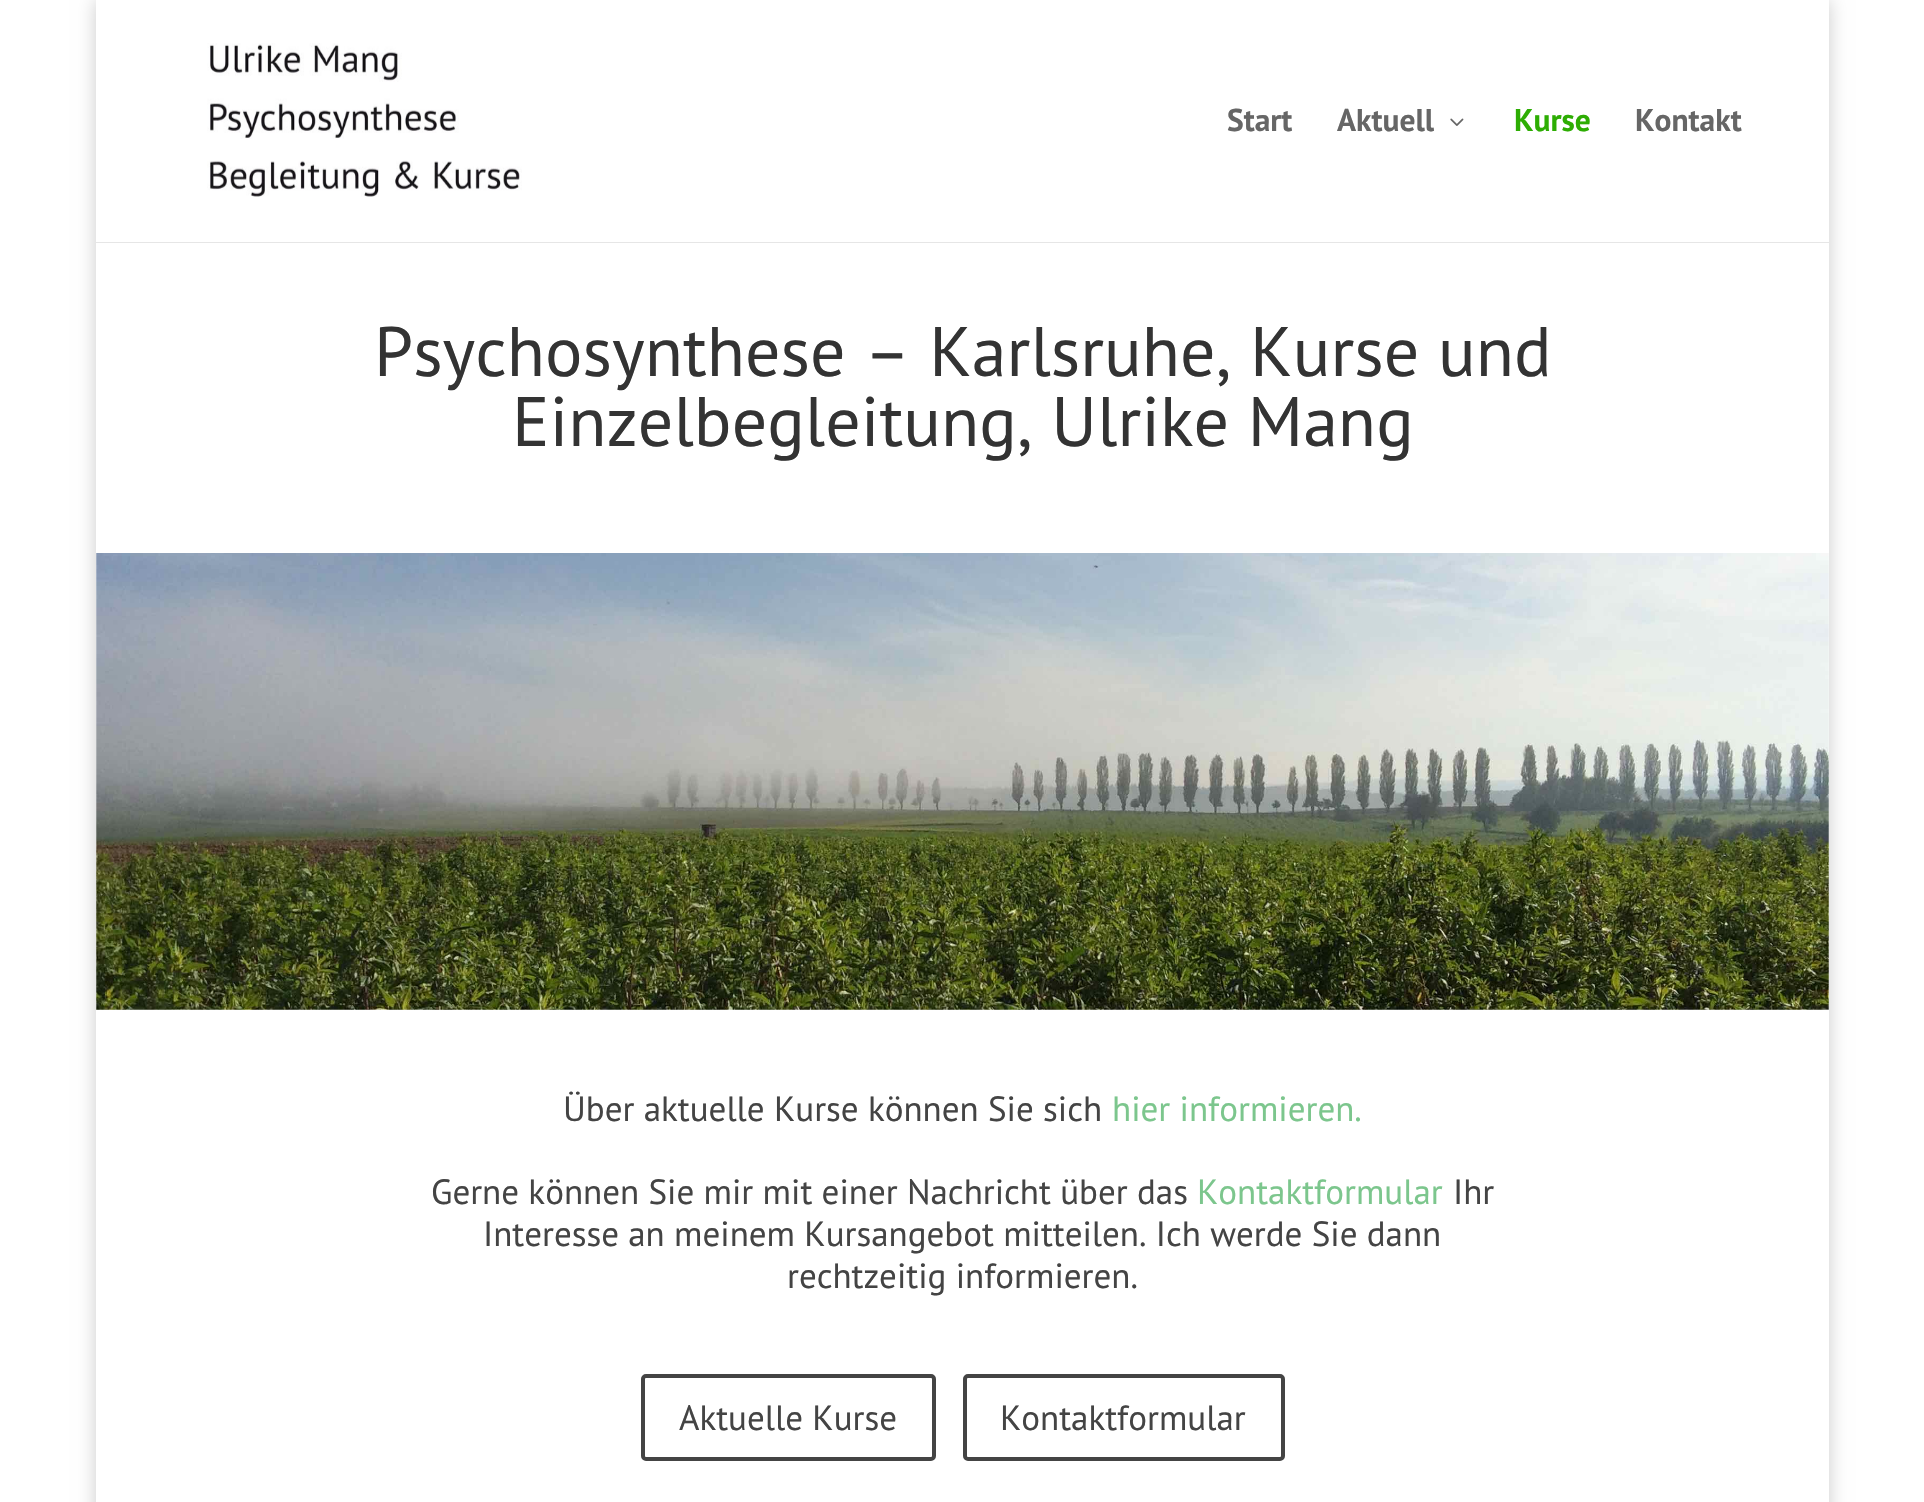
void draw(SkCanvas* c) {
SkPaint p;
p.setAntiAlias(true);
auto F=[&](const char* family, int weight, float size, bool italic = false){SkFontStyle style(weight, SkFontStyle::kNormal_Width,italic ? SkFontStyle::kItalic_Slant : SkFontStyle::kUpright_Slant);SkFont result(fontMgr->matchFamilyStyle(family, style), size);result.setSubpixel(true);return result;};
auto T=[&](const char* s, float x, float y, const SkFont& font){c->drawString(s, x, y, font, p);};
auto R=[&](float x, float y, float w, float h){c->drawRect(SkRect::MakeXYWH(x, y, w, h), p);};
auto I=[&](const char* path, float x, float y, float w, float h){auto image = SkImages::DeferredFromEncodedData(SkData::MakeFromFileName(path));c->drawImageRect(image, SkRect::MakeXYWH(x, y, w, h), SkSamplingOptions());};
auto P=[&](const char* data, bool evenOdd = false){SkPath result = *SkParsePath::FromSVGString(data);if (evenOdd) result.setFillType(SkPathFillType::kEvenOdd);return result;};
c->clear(0xffffffff);
p.setColor(0x33000000);
p.setMaskFilter(SkMaskFilter::MakeBlur(kNormal_SkBlurStyle, 9));
c->drawRect(SkRect::MakeXYWH(96,0,1733,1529),p);
p.setMaskFilter(nullptr);
p.setColor(0xffe6e6e6);
c->drawPath(P("M96 2v241h1733v-241v240h-1733z"),p);
p.setColor(0xffffffff);
R(96,0,1733,242);
I("1.png",207,43,315,154);
auto f1 = F("PT Sans",700,31.5);
p.setColor(0xff666666);
T("Start",1227,131,f1);
T("Aktuell",1337,131,f1);
I("2.png",1450,118,14,8);
p.setColor(0xff2dad03);
T("Kurse",1514,131,f1);
p.setColor(0xff666666);
T("Kontakt",1635,131,f1);
p.setColor(0xffffffff);
R(96,243,1733,1259);
auto f2 = F("PT Sans",400,70);
p.setColor(0xff333333);
T("Psychosynthese – Karlsruhe, Kurse und",374,376,f2);
T("Einzelbegleitung, Ulrike Mang",512,446,f2);
I("3.png",96,553,1733,457);
auto f3 = F("PT Sans",400,35);
p.setColor(0xff444444);
T("Über aktuelle Kurse können Sie sich",563,1121,f3);
p.setColor(0xff7cc68d);
T("hier informieren.",1112,1121,f3);
p.setColor(0xff444444);
T("Gerne können Sie mir mit einer Nachricht über das",431,1204,f3);
p.setColor(0xff7cc68d);
T("Kontaktformular",1197,1204,f3);
p.setColor(0xff444444);
T("Ihr",1453,1204,f3);
T("Interesse an meinem Kursangebot mitteilen. Ich werde Sie dann",483,1246,f3);
T("rechtzeitig informieren.",787,1288,f3);
p.setStroke(true);
p.setStrokeWidth(4);
c->drawRoundRect(SkRect::MakeXYWH(643,1376,291,83),3,3,p);
p.setStroke(false);
T("Aktuelle Kurse",679,1430,f3);
p.setStroke(true);
c->drawRoundRect(SkRect::MakeXYWH(965,1376,318,83),3,3,p);
p.setStroke(false);
T("Kontaktformular",1000,1430,f3);
}
